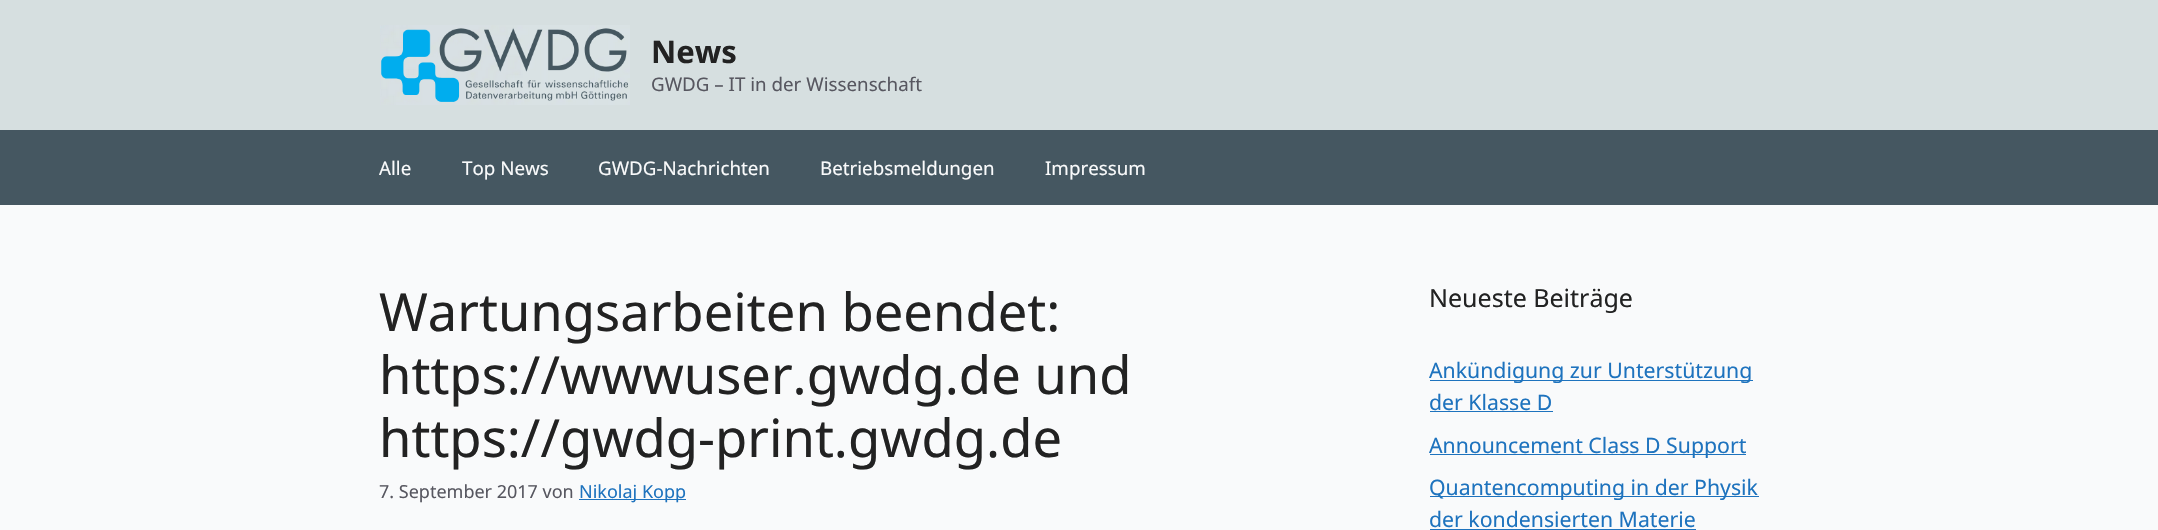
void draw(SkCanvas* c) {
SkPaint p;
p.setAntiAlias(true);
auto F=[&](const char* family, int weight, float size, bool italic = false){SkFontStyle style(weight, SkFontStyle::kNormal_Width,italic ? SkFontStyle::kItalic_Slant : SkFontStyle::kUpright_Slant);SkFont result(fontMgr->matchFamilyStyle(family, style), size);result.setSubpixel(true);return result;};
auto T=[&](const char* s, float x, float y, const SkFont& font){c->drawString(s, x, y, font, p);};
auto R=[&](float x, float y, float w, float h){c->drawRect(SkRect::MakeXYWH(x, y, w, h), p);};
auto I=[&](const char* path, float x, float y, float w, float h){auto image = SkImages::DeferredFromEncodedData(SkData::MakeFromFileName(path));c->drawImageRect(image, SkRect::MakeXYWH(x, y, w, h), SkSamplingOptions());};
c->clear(0xfff9fafb);
p.setColor(0xffd6dfe0);
R(0,0,2158,130);
I("1.png",380,25,250,80);
auto f1 = F("Noto Sans",700,31);
p.setColor(0xff222222);
T("News",651,63,f1);
auto f2 = F("Noto Sans",400,18.75);
p.setColor(0xff575760);
T("GWDG – IT in der Wissenschaft",651,91,f2);
p.setColor(0xff455761);
R(0,130,2158,75);
p.setColor(0xfff9fafb);
T("Alle",379,175,f2);
T("Top News",462,175,f2);
T("GWDG-Nachrichten",598,175,f2);
T("Betriebsmeldungen",820,175,f2);
T("Impressum",1045,175,f2);
auto f3 = F("Noto Sans",400,52.5);
p.setColor(0xff222222);
T("Wartungsarbeiten beendet:",379,331,f3);
T("https://wwwuser.gwdg.de und",379,394,f3);
T("https://gwdg-print.gwdg.de",379,457,f3);
auto f4 = F("Noto Sans",400,18);
p.setColor(0xff575760);
T("7. September 2017 von",379,498,f4);
p.setColor(0xff1e73be);
R(579,499,107,1);
T("Nikolaj Kopp",579,498,f4);
auto f5 = F("Noto Sans",400,25);
p.setColor(0xff222222);
T("Neueste Beiträge",1429,307,f5);
p.setColor(0xff1e73be);
R(1430,380,323,1);
auto f6 = F("Noto Sans",400,21.25);
T("Ankündigung zur Unterstützung",1429,378,f6);
T("der Klasse D",1429,410,f6);
R(1430,411,123,1);
R(1430,454,316,1);
T("Announcement Class D Support",1429,453,f6);
R(1430,496,329,1);
T("Quantencomputing in der Physik",1429,495,f6);
T("der kondensierten Materie",1429,527,f6);
R(1430,529,266,1);
}
